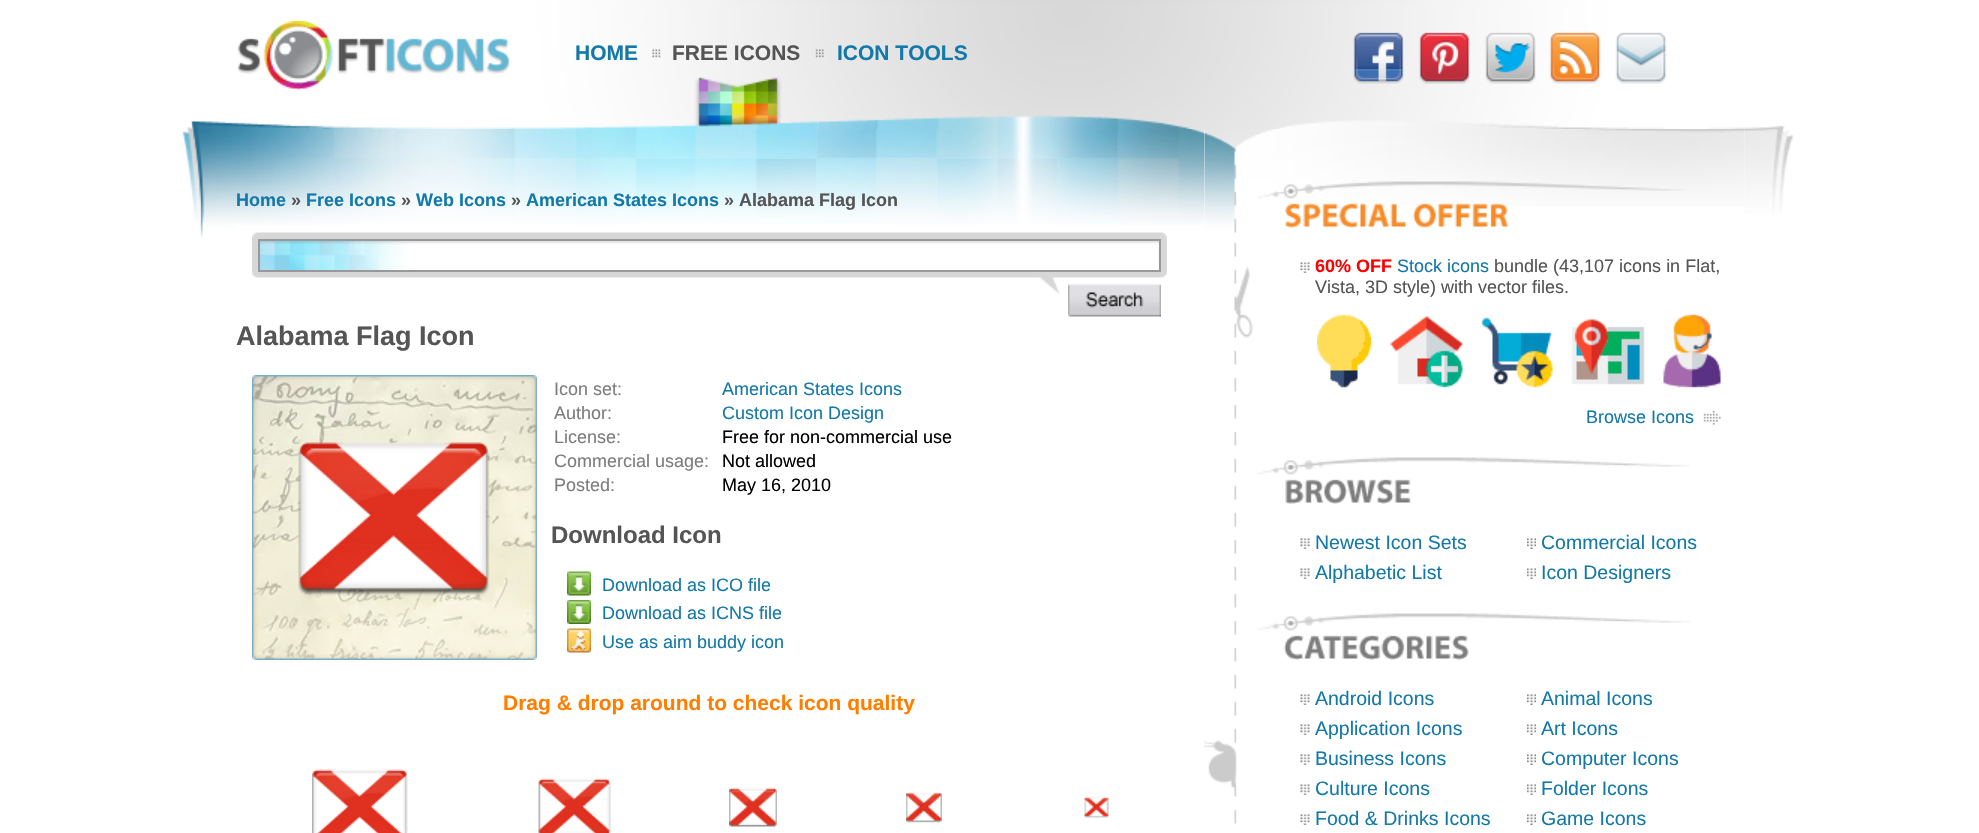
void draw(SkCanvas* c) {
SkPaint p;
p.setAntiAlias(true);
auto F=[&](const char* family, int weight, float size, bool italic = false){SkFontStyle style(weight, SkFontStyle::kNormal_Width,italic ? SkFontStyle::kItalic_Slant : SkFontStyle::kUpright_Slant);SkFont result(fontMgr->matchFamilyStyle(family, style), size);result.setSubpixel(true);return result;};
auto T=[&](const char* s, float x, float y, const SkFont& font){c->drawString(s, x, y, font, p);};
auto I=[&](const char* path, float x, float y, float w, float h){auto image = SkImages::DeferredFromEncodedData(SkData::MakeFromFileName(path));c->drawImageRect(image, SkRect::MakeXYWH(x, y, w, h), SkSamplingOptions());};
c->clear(0xffffffff);
I("1.png",237,0,1508,129);
I("2.png",237,21,273,69);
I("3.png",562,49,93,80);
auto f1 = F("Liberation Sans",700,21);
p.setColor(0xff1479a8);
T("HOME",575,60,f1);
I("4.png",655,49,164,80);
p.setColor(0xff555555);
T("FREE ICONS",672,60,f1);
I("5.png",819,49,162,80);
p.setColor(0xff1479a8);
T("ICON TOOLS",837,60,f1);
I("6.png",1353,32,51,52);
I("7.png",1419,32,51,52);
I("8.png",1485,32,51,52);
I("9.png",1549,32,52,52);
I("10.png",1615,32,52,52);
I("11.png",187,120,50,9);
I("12.png",1744,125,41,4);
I("13.png",182,129,55,109);
I("17.png",237,129,968,96);
I("14.png",1204,129,53,695);
I("15.png",1204,129,53,104);
I("25.png",1257,129,488,77);
I("16.png",1744,129,50,86);
auto f2 = F("Liberation Sans",700,18);
T("Home",236,206,f2);
p.setColor(0xff555555);
T("»",291,206,f2);
p.setColor(0xff1479a8);
T("Free Icons",306,206,f2);
p.setColor(0xff555555);
T("»",401,206,f2);
p.setColor(0xff1479a8);
T("Web Icons",416,206,f2);
p.setColor(0xff555555);
T("»",511,206,f2);
p.setColor(0xff1479a8);
T("American States Icons",526,206,f2);
p.setColor(0xff555555);
T("» Alabama Flag Icon",724,206,f2);
I("18.png",252,232,915,62);
I("19.png",260,241,899,29);
p.setStroke(true);
p.setStrokeWidth(2);
p.setColor(0xff999999);
c->drawRect(SkRect::MakeXYWH(259,240,901,31),p);
I("20.png",1068,283,93,34);
auto f3 = F("Liberation Sans",700,27);
p.setStroke(false);
p.setColor(0xff555555);
T("Alabama Flag Icon",236,345,f3);
I("21.png",252,375,285,285);
auto f4 = F("Liberation Sans",400,18);
p.setColor(0xff7d7d7d);
T("Icon set:",554,395,f4);
p.setColor(0xff1479a8);
T("American States Icons",722,395,f4);
p.setColor(0xff7d7d7d);
T("Author:",554,419,f4);
p.setColor(0xff1479a8);
T("Custom Icon Design",722,419,f4);
p.setColor(0xff7d7d7d);
T("License:",554,443,f4);
p.setColor(0xff000000);
T("Free for non-commercial use",722,443,f4);
p.setColor(0xff7d7d7d);
T("Commercial usage:",554,467,f4);
p.setColor(0xff000000);
T("Not allowed",722,467,f4);
p.setColor(0xff7d7d7d);
T("Posted:",554,491,f4);
p.setColor(0xff000000);
T("May 16, 2010",722,491,f4);
auto f5 = F("Liberation Sans",700,24);
p.setColor(0xff555555);
T("Download Icon",551,543,f5);
I("22.png",567,571,24,25);
p.setColor(0xff1479a8);
T("Download as ICO file",602,591,f4);
I("23.png",567,600,24,24);
T("Download as ICNS file",602,619,f4);
I("24.png",567,628,24,25);
T("Use as aim buddy icon",602,648,f4);
p.setColor(0xffff7e00);
T("Drag & drop around to check icon quality",503,710,f1);
I("26.png",1257,181,429,47);
I("27.png",1300,262,10,11);
p.setColor(0xffff0000);
T("60% OFF",1315,272,f2);
p.setColor(0xff1479a8);
T("Stock icons",1397,272,f4);
p.setColor(0xff555555);
T("bundle (43,107 icons in Flat,",1494,272,f4);
T("Vista, 3D style) with vector files.",1315,293,f4);
I("28.png",1317,314,404,74);
p.setColor(0xff1479a8);
T("Browse Icons",1586,423,f4);
I("29.png",1703,410,18,15);
I("30.png",1257,457,434,47);
I("27.png",1300,538,10,11);
auto f6 = F("Liberation Sans",400,19.5);
T("Newest Icon Sets",1315,549,f6);
I("31.png",1527,538,9,11);
T("Commercial Icons",1541,549,f6);
I("27.png",1300,568,10,11);
T("Alphabetic List",1315,579,f6);
I("31.png",1527,568,9,11);
T("Icon Designers",1541,579,f6);
I("32.png",1257,613,434,47);
I("27.png",1300,694,10,11);
T("Android Icons",1315,705,f6);
I("31.png",1527,694,9,11);
T("Animal Icons",1541,705,f6);
I("27.png",1300,724,10,11);
T("Application Icons",1315,735,f6);
I("31.png",1527,724,9,11);
T("Art Icons",1541,735,f6);
I("27.png",1300,754,10,11);
T("Business Icons",1315,765,f6);
I("31.png",1527,754,9,11);
T("Computer Icons",1541,765,f6);
I("27.png",1300,784,10,11);
T("Culture Icons",1315,795,f6);
I("31.png",1527,784,9,11);
T("Folder Icons",1541,795,f6);
I("27.png",1300,814,10,11);
T("Food & Drinks Icons",1315,825,f6);
I("31.png",1527,814,9,11);
T("Game Icons",1541,825,f6);
I("33.png",298,439,192,157);
I("34.png",312,769,96,64);
I("35.png",538,778,73,55);
I("36.png",729,787,48,40);
I("37.png",906,792,36,31);
I("38.png",1084,796,25,22);
}
